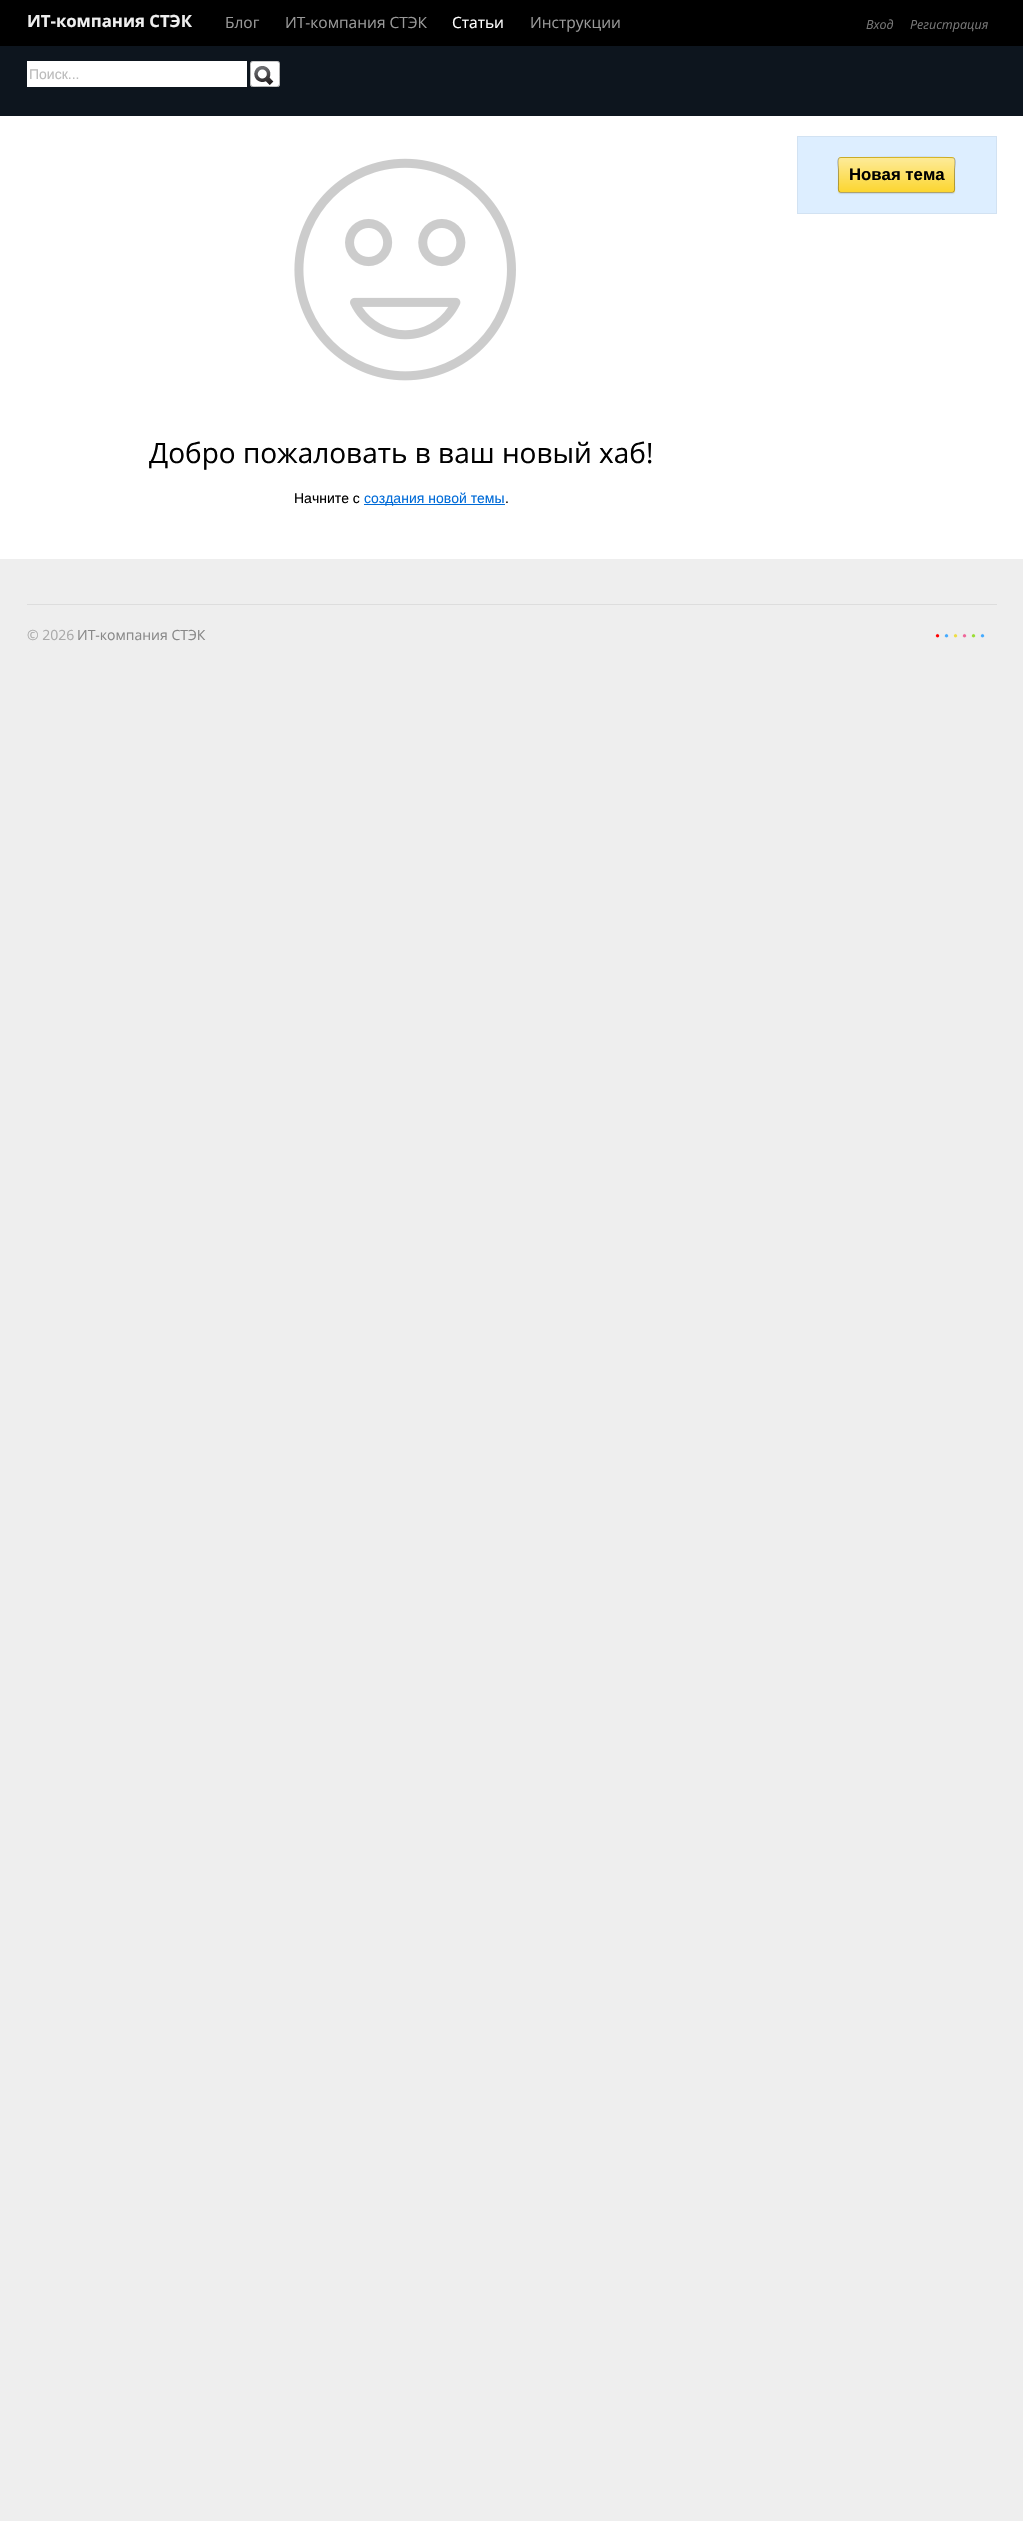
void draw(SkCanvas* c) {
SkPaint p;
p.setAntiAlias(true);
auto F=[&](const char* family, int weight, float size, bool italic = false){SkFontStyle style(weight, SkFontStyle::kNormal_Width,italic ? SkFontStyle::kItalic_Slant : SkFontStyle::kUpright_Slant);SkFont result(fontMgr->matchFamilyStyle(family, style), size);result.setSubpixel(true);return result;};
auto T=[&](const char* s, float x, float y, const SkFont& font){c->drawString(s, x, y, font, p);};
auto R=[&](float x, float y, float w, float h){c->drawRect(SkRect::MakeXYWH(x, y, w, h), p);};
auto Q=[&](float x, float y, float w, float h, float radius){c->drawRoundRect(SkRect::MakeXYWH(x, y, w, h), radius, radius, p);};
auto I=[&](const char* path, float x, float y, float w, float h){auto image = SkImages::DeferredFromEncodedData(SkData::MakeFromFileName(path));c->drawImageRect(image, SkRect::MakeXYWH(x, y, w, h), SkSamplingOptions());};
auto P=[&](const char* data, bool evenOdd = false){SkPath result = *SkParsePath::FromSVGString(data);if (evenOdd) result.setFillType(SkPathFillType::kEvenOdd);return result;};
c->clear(0xffeeeeee);
p.setColor(0xff0d151e);
R(0,46,1023,70);
p.setColor(0xff000000);
R(0,0,1023,46);
auto f1 = F("Open Sans",700,16.75);
p.setColor(0xffeeeeee);
T("ИТ-компания СТЭК",27,27,f1);
auto f2 = F("Open Sans",400,15.5);
p.setColor(0xff999999);
T("Блог",225,28,f2);
T("ИТ-компания СТЭК",285,28,f2);
p.setColor(0xffffffff);
T("Статьи",452,28,f2);
p.setColor(0xff999999);
T("Инструкции",530,28,f2);
auto f3 = F("Open Sans",400,12.5,true);
p.setColor(0xff777777);
T("Вход",866,29,f3);
T("Регистрация",910,29,f3);
p.setColor(0xffffffff);
R(27,61,220,26);
auto f4 = F("Liberation Sans",400,14);
p.setColor(0xffbbbbbb);
T("Поиск...",29,79,f4);
p.setColor(0xffffffff);
Q(250,61,30,26,3);
I("1.png",254,66,20,19);
p.setStroke(true);
p.setStrokeWidth(1);
p.setColor(0x33000000);
c->drawPath(P("M251 62c.5 0 1.5-.5 2-.5h24c.5 0 1.5 .5 2 .5"),p);
p.setColor(0x4d000000);
c->drawPath(P("M279 62c1 1.5 .5 4 .5 5.5v6.5c0 15.5 2 12.5-14.5 12.5c-16.5 0-14.5 3-14.5-12.5v-6.5c0-1.5-.5-4 .5-5.5"),p);
p.setStroke(false);
p.setColor(0xffffffff);
R(0,116,1023,443);
p.setColor(0xffddeeff);
c->drawRect(SkRect::MakeXYWH(797.5,136.5,199,77),p);
p.setStroke(true);
p.setColor(0xffd2e2f2);
c->drawRect(SkRect::MakeXYWH(797.5,136.5,199,77),p);
p.setStroke(false);
p.setColor(0x1a000000);
p.setMaskFilter(SkMaskFilter::MakeBlur(kNormal_SkBlurStyle, .5));
c->drawRoundRect(SkRect::MakeXYWH(838,158,117,36),3,3,p);
p.setMaskFilter(nullptr);
p.setColor(0xfffcd630);
Q(838,157,117,36,3);
{
const SkColor colors[] = {0x80ffffff,0x00ffffff};
const float stops[] = {0,1};
const SkPoint ends[] = {{897,158}, {897,192}};
p.setShader(SkGradientShader::MakeLinear(ends, colors, stops, 2, SkTileMode::kClamp));
p.setAlpha(255);
}
R(838,158,117,33);
c->save();
c->clipPath(P("M841 157h111c1.5 0 3 1.5 3 3v30c0 1.5-1.5 3-3 3h-111c-1.5 0-3-1.5-3-3v-30c0-1.5 1.5-3 3-3z"),true);
{
const SkColor colors[] = {0x80ffffff,0x00ffffff};
const float stops[] = {0,1};
const SkPoint ends[] = {{897,192}, {897,226}};
p.setShader(SkGradientShader::MakeLinear(ends, colors, stops, 2, SkTileMode::kClamp));
p.setAlpha(255);
}
R(838,192,117,1);
c->restore();
p.setStroke(true);
p.setShader(nullptr);
p.setColor(0x33000000);
c->drawPath(P("M839 158l2-.5h18.5c9.5 0 92-1 94 .5h.5"),p);
p.setColor(0x4d000000);
c->drawPath(P("M954 158c2 2 .5 9.5 .5 12v15c0 1.5 1 7.5-2.5 7.5h-111c-3.5 0-2.5-6-2.5-7.5v-15c0-2.5-1.5-10 .5-12"),p);
auto f5 = F("Liberation Sans",700,16.75);
p.setStroke(false);
p.setColor(0xff000000);
T("Новая тема",849,180,f5);
I("2.png",294,158,222,223);
auto f6 = F("Open Sans",400,28);
T("Добро пожаловать в ваш новый хаб!",149,463,f6);
T("Начните с",294,503,f4);
p.setColor(0xff006bd8);
R(364,504,141,1);
T("создания новой темы",364,503,f4);
p.setColor(0xff000000);
T(".",505,503,f4);
p.setColor(0xffdddddd);
R(27,604,970,1);
auto f7 = F("Open Sans",400,14);
p.setColor(0xffaaaaaa);
T("© 2026",27,640,f7);
p.setColor(0xff888888);
T("ИТ-компания СТЭК",77,640,f7);
I("3.png",935,633,50,5);
}
